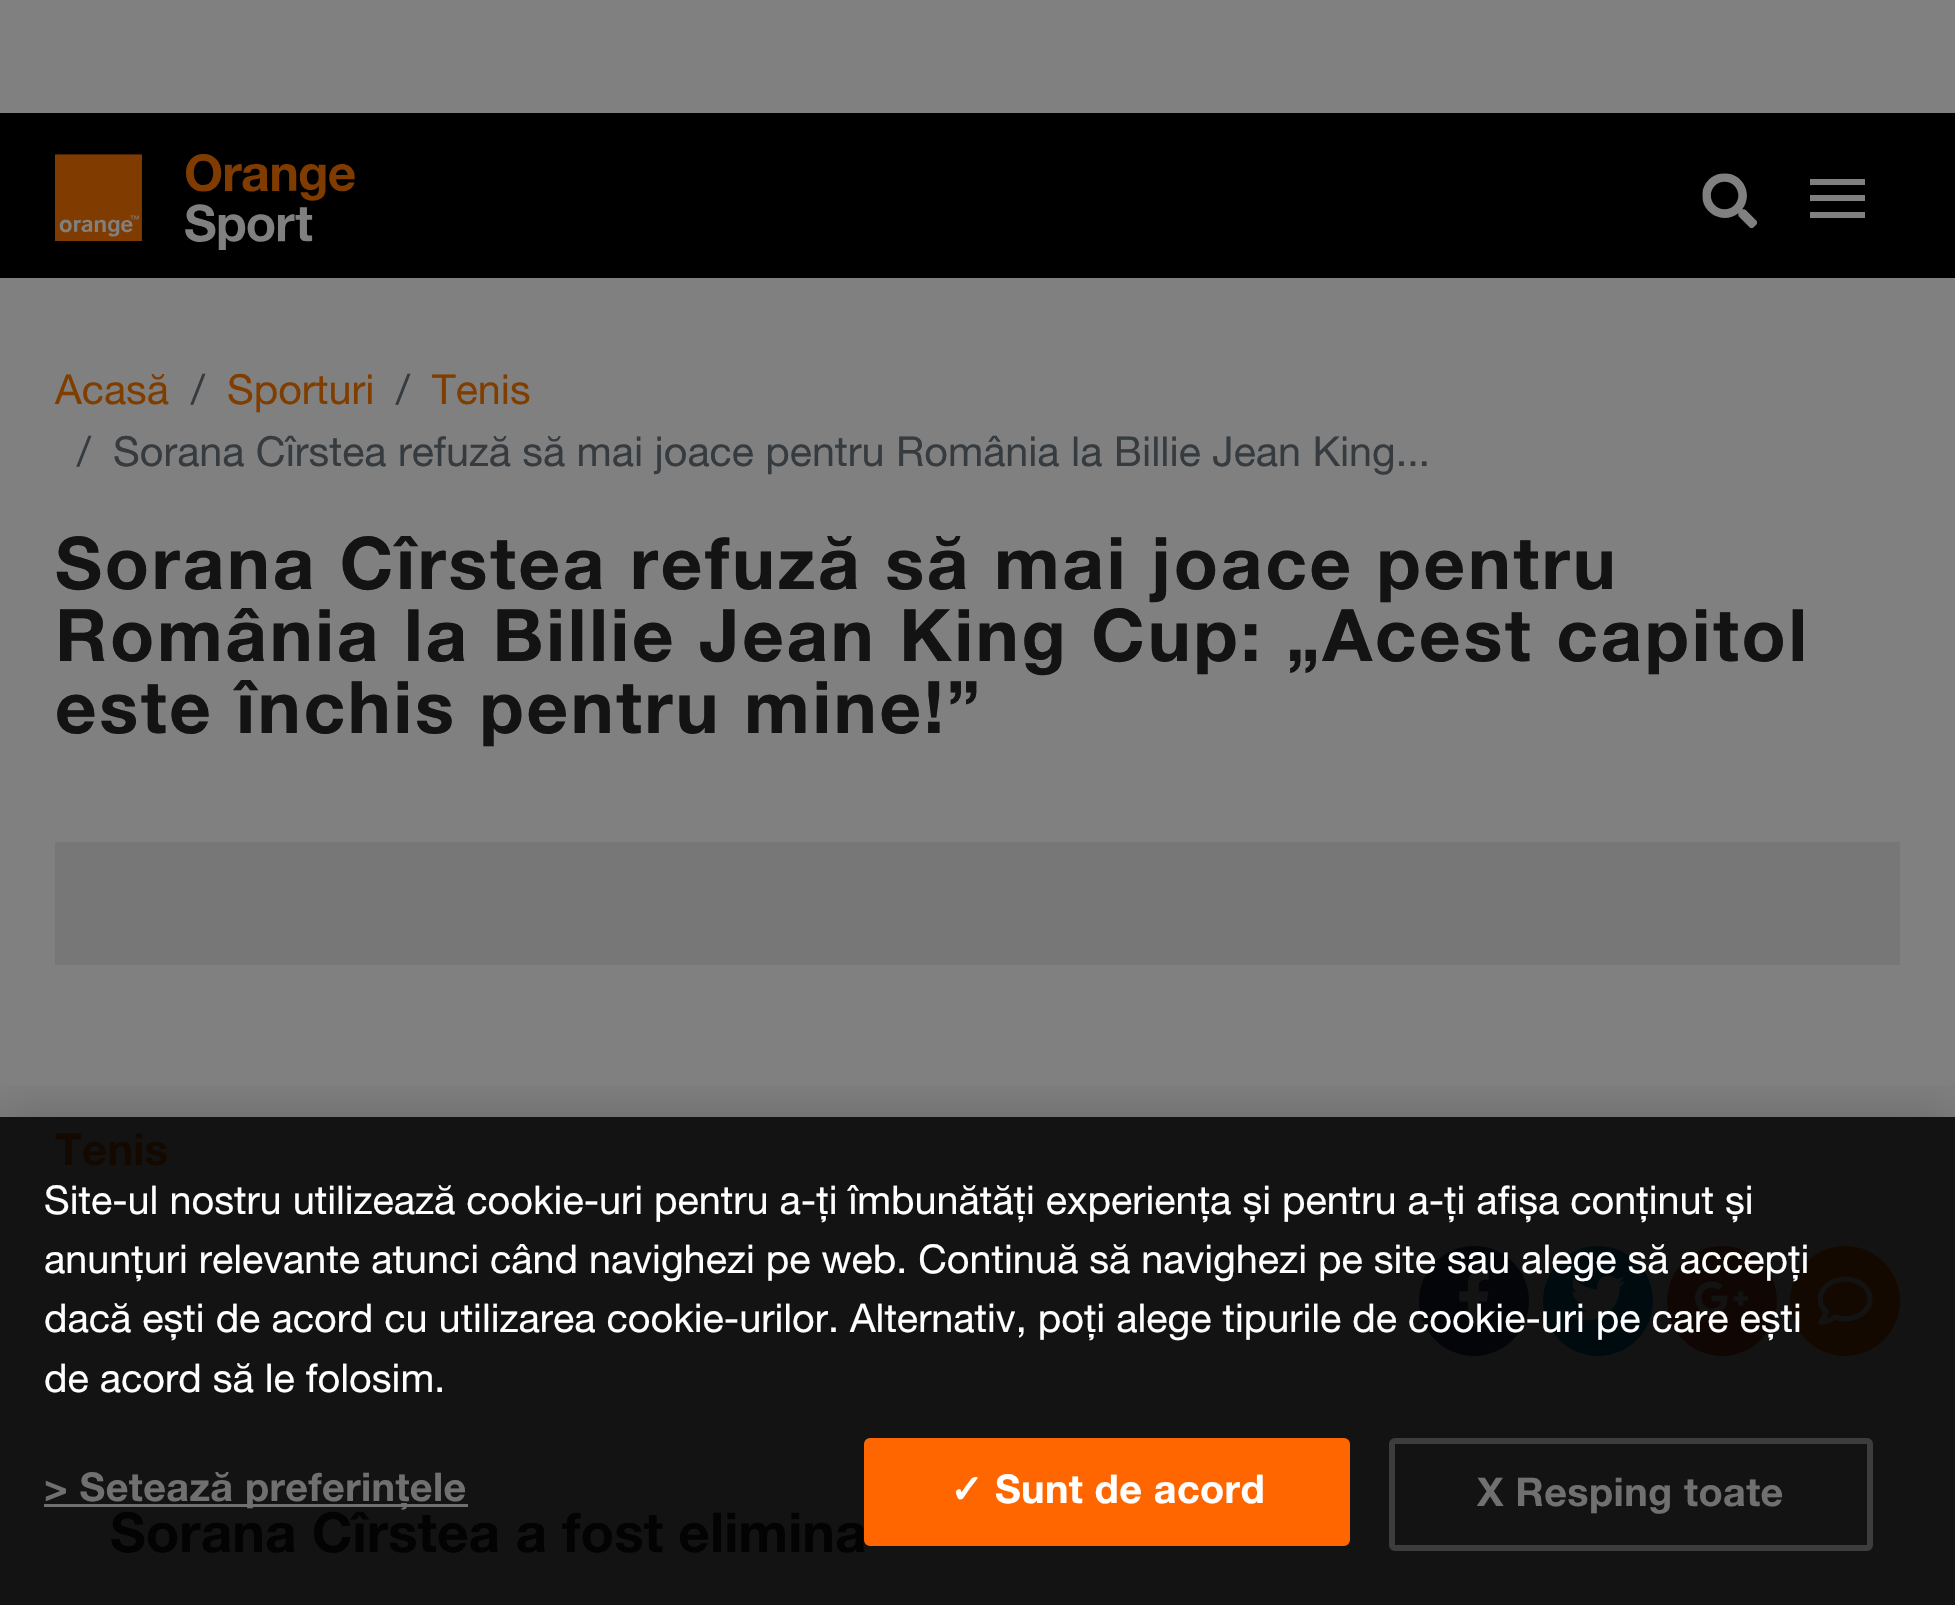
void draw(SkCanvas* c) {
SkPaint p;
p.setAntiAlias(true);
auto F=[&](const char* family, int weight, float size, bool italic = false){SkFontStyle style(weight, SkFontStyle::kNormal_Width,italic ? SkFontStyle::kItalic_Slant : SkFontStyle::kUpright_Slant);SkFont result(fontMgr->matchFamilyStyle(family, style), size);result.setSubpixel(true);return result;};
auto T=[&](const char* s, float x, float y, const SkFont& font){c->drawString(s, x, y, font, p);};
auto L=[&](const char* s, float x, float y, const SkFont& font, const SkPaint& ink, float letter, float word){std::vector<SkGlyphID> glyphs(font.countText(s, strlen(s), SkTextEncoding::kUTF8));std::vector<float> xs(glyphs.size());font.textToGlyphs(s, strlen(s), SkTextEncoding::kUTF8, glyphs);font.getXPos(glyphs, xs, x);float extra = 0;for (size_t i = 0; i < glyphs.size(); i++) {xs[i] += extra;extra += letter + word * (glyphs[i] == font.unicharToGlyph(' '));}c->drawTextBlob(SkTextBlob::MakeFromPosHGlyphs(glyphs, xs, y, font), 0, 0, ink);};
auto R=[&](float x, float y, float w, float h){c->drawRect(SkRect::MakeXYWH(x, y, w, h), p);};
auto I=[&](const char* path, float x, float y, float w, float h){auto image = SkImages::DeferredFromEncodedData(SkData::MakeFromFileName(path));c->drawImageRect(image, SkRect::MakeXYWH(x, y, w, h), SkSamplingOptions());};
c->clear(0xff808080);
p.setColor(0xff131313);
R(0,1117,1955,488);
p.setColor(0xff000000);
R(0,113,1955,165);
I("1.png",55,154,300,96);
I("2.png",1702,173,55,55);
p.setColor(0xff808080);
R(1810,179,55,6);
R(1810,195,55,6);
R(1810,212,55,6);
auto f1 = F("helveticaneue",400,41.25);
p.setColor(0xff803d00);
T("Acasă",55,404,f1);
p.setColor(0xff363b3f);
T("/",191,404,f1);
p.setColor(0xff803d00);
T("Sporturi",227,404,f1);
p.setColor(0xff363b3f);
T("/",396,404,f1);
p.setColor(0xff803d00);
T("Tenis",432,404,f1);
p.setColor(0xff363b3f);
T("/",77,466,f1);
T("Sorana Cîrstea refuză să mai joace pentru România la Billie Jean King...",113,466,f1);
auto f2 = F("helveticaneue",700,72.4);
p.setColor(0xff131313);
L("Sorana Cîrstea refuză să mai joace pentru",55,589,f2,p,2.75,0);
L("România la Billie Jean King Cup: „Acest capitol",55,661,f2,p,2.75,0);
L("este închis pentru mine!”",55,733,f2,p,2.75,0);
p.setColor(0xff777777);
R(55,842,1845,123);
auto f3 = F("helveticaneue",700,44);
p.setColor(0xff130900);
T("Tenis",55,1165,f3);
p.setColor(0xff030509);
c->drawCircle(1474,1301,55,p);
I("3.png",1459,1270,30,56);
p.setColor(0xff000b10);
c->drawCircle(1598,1301,55,p);
I("4.png",1570,1275,55,46);
p.setColor(0xff100604);
c->drawCircle(1722,1301,55,p);
I("5.png",1695,1281,53,34);
p.setColor(0xff130900);
c->drawCircle(1845,1301,55,p);
I("6.png",1818,1276,55,49);
auto f4 = F("helveticaneue",700,55);
p.setColor(0xff030303);
T("Sorana Cîrstea a fost elimina",110,1552,f4);
c->save();
c->clipRect(SkRect::MakeXYWH(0,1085,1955,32));
p.setColor(0x33000000);
p.setMaskFilter(SkMaskFilter::MakeBlur(kNormal_SkBlurStyle, 25));
c->drawRect(SkRect::MakeXYWH(0,1117,1955,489),p);
p.setMaskFilter(nullptr);
c->restore();
auto f5 = F("helveticaneue",400,39.6);
p.setColor(0xffffffff);
T("Site-ul nostru utilizează cookie-uri pentru a-ți îmbunătăți experiența și pentru a-ți afișa conținut și",44,1214,f5);
T("anunțuri relevante atunci când navighezi pe web. Continuă să navighezi pe site sau alege să accepți",44,1273,f5);
T("dacă ești de acord cu utilizarea cookie-urilor. Alternativ, poți alege tipurile de cookie-uri pe care ești",44,1332,f5);
T("de acord să le folosim.",44,1392,f5);
p.setColor(0xff707070);
R(44,1504,424,3);
auto f6 = F("helveticaneue",700,39.6);
L("> Setează preferințele",44,1501,f6,p,.4,0);
p.setColor(0xffff6600);
c->drawRoundRect(SkRect::MakeXYWH(865.5,1439.5,483,105),4.5,4.5,p);
p.setStroke(true);
p.setStrokeWidth(3);
c->drawRoundRect(SkRect::MakeXYWH(865.5,1439.5,483,105),4.5,4.5,p);
auto f7 = F("DejaVu Sans",700,39.6);
p.setStroke(false);
p.setColor(0xffffffff);
L("✓",950,1503,f7,p,.4,0);
L("Sunt de acord",995,1503,f6,p,.4,0);
p.setStroke(true);
p.setStrokeWidth(6);
p.setColor(0xff3d3d3d);
c->drawRoundRect(SkRect::MakeXYWH(1392,1441,478,107),3,3,p);
p.setStroke(false);
p.setColor(0xff707070);
L("X Resping toate",1477,1506,f6,p,.4,0);
}
